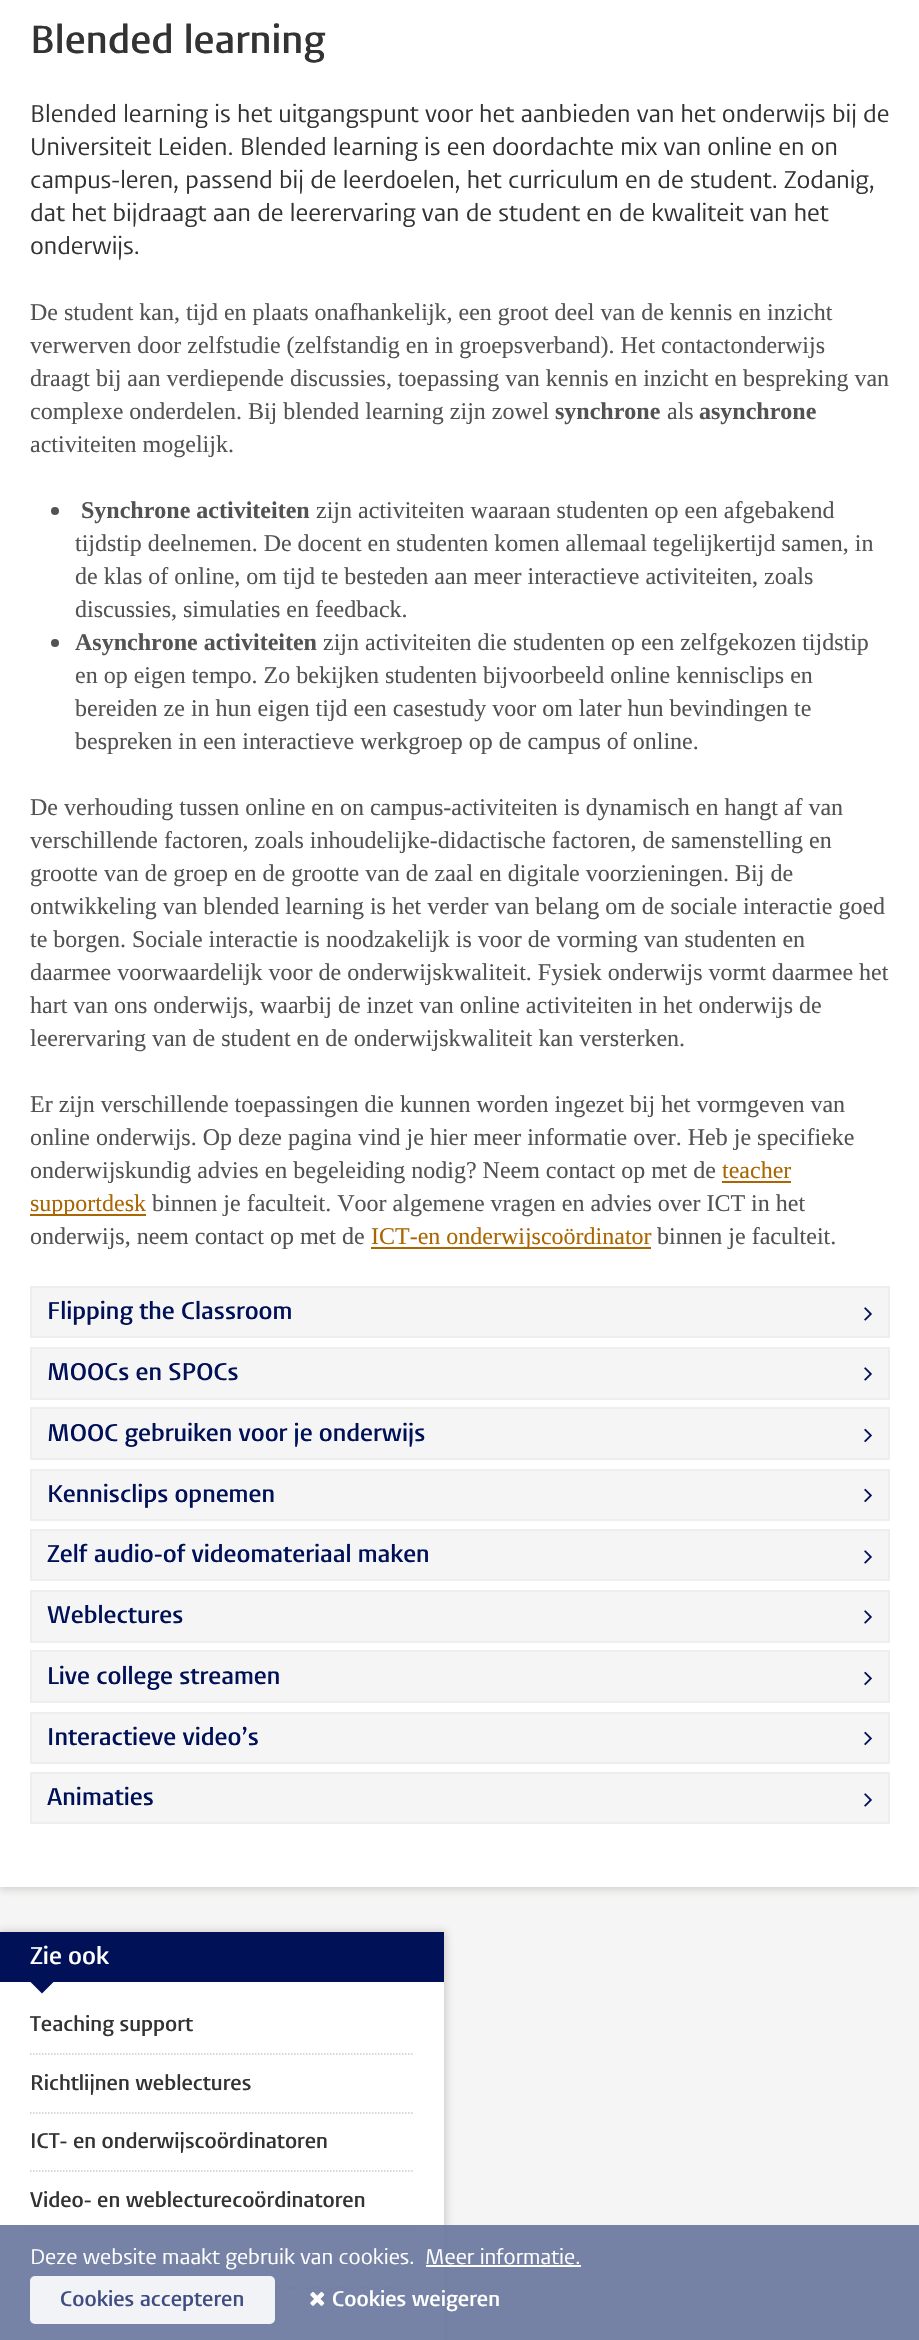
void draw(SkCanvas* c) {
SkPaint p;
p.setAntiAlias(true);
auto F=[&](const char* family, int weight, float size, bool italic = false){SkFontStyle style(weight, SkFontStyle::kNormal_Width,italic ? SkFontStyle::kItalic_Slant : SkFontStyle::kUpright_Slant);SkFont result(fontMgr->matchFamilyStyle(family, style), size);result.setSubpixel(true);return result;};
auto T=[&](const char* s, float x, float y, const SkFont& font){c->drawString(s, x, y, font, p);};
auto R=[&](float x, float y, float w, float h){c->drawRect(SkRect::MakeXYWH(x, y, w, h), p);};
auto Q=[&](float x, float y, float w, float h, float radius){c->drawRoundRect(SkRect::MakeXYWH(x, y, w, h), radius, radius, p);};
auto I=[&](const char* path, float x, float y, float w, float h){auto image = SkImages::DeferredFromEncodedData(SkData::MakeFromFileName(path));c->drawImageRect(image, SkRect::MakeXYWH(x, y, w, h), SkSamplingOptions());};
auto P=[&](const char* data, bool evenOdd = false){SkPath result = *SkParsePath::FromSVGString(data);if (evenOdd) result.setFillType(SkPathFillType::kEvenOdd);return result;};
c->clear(0xfff5f5f5);
p.setColor(0x4d786e64);
p.setMaskFilter(SkMaskFilter::MakeBlur(kNormal_SkBlurStyle, 4));
c->drawRect(SkRect::MakeXYWH(-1,-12,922,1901),p);
p.setMaskFilter(nullptr);
p.setColor(0xffffffff);
R(0,0,919,1887);
auto f1 = F("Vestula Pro",600,39);
p.setColor(0xff333333);
T("Blended learning",30,53,f1);
auto f2 = F("Vestula Pro",400,24);
T("Blended learning is het uitgangspunt voor het aanbieden van het onderwijs bij de",30,122,f2);
T("Universiteit Leiden. Blended learning is een doordachte mix van online en on",30,155,f2);
T("campus-leren, passend bij de leerdoelen, het curriculum en de student. Zodanig,",30,188,f2);
T("dat het bijdraagt aan de leerervaring van de student en de kwaliteit van het",30,221,f2);
T("onderwijs.",30,254,f2);
auto f3 = F("Liberation Serif",400,24);
p.setColor(0xff535353);
T("De student kan, tijd en plaats onafhankelijk, een groot deel van de kennis en inzicht",30,320,f3);
T("verwerven door zelfstudie (zelfstandig en in groepsverband). Het contactonderwijs",30,353,f3);
T("draagt bij aan verdiepende discussies, toepassing van kennis en inzicht en bespreking van",30,386,f3);
T("complexe onderdelen. Bij blended learning zijn zowel",30,419,f3);
auto f4 = F("Liberation Serif",700,24);
T("synchrone",555,419,f4);
T("als",667,419,f3);
T("asynchrone",699,419,f4);
T("activiteiten mogelijk.",30,452,f3);
c->drawCircle(55,511,4,p);
T("Synchrone activiteiten",81,518,f4);
T("zijn activiteiten waaraan studenten op een afgebakend",316,518,f3);
T("tijdstip deelnemen. De docent en studenten komen allemaal tegelijkertijd samen, in",75,551,f3);
T("de klas of online, om tijd te besteden aan meer interactieve activiteiten, zoals",75,584,f3);
T("discussies, simulaties en feedback.",75,617,f3);
c->drawCircle(55,643,4,p);
T("Asynchrone activiteiten",75,650,f4);
T("zijn activiteiten die studenten op een zelfgekozen tijdstip",323,650,f3);
T("en op eigen tempo. Zo bekijken studenten bijvoorbeeld online kennisclips en",75,683,f3);
T("bereiden ze in hun eigen tijd een casestudy voor om later hun bevindingen te",75,716,f3);
T("bespreken in een interactieve werkgroep op de campus of online.",75,749,f3);
T("De verhouding tussen online en on campus-activiteiten is dynamisch en hangt af van",30,815,f3);
T("verschillende factoren, zoals inhoudelijke-didactische factoren, de samenstelling en",30,848,f3);
T("grootte van de groep en de grootte van de zaal en digitale voorzieningen. Bij de",30,881,f3);
T("ontwikkeling van blended learning is het verder van belang om de sociale interactie goed",30,914,f3);
T("te borgen. Sociale interactie is noodzakelijk is voor de vorming van studenten en",30,947,f3);
T("daarmee voorwaardelijk voor de onderwijskwaliteit. Fysiek onderwijs vormt daarmee het",30,980,f3);
T("hart van ons onderwijs, waarbij de inzet van online activiteiten in het onderwijs de",30,1013,f3);
T("leerervaring van de student en de onderwijskwaliteit kan versterken.",30,1046,f3);
T("Er zijn verschillende toepassingen die kunnen worden ingezet bij het vormgeven van",30,1112,f3);
T("online onderwijs. Op deze pagina vind je hier meer informatie over. Heb je specifieke",30,1145,f3);
T("onderwijskundig advies en begeleiding nodig? Neem contact op met de",30,1178,f3);
p.setColor(0xffaa6600);
T("teacher",722,1178,f3);
R(722,1181,69,2);
R(30,1214,116,2);
T("supportdesk",30,1211,f3);
p.setColor(0xff535353);
T("binnen je faculteit. Voor algemene vragen en advies over ICT in het",152,1211,f3);
T("onderwijs, neem contact op met de",30,1244,f3);
p.setColor(0xffaa6600);
R(371,1247,280,2);
T("ICT-en onderwijscoördinator",371,1244,f3);
p.setColor(0xff535353);
T("binnen je faculteit.",657,1244,f3);
p.setColor(0xfff5f5f5);
c->drawRect(SkRect::MakeXYWH(31,1287,858,50),p);
p.setStroke(true);
p.setStrokeWidth(2);
p.setColor(0xffeeeeee);
c->drawRect(SkRect::MakeXYWH(31,1287,858,50),p);
auto f5 = F("Vestula Pro",600,24);
p.setStroke(false);
p.setColor(0xff001158);
T("Flipping the Classroom",47,1319,f5);
I("1.png",864,1307,8,14);
p.setColor(0xfff5f5f5);
c->drawRect(SkRect::MakeXYWH(31,1348,858,51),p);
p.setStroke(true);
p.setColor(0xffeeeeee);
c->drawRect(SkRect::MakeXYWH(31,1348,858,51),p);
p.setStroke(false);
p.setColor(0xff001158);
T("MOOCs en SPOCs",47,1380,f5);
I("1.png",864,1367,8,14);
p.setColor(0xfff5f5f5);
c->drawRect(SkRect::MakeXYWH(31,1408,858,51),p);
p.setStroke(true);
p.setColor(0xffeeeeee);
c->drawRect(SkRect::MakeXYWH(31,1408,858,51),p);
p.setStroke(false);
p.setColor(0xff001158);
T("MOOC gebruiken voor je onderwijs",47,1441,f5);
I("2.png",864,1428,8,15);
p.setColor(0xfff5f5f5);
c->drawRect(SkRect::MakeXYWH(31,1470,858,50),p);
p.setStroke(true);
p.setColor(0xffeeeeee);
c->drawRect(SkRect::MakeXYWH(31,1470,858,50),p);
p.setStroke(false);
p.setColor(0xff001158);
T("Kennisclips opnemen",47,1502,f5);
I("2.png",864,1488,8,15);
p.setColor(0xfff5f5f5);
c->drawRect(SkRect::MakeXYWH(31,1530,858,50),p);
p.setStroke(true);
p.setColor(0xffeeeeee);
c->drawRect(SkRect::MakeXYWH(31,1530,858,50),p);
p.setStroke(false);
p.setColor(0xff001158);
T("Zelf audio-of videomateriaal maken",47,1562,f5);
I("1.png",864,1550,8,14);
p.setColor(0xfff5f5f5);
c->drawRect(SkRect::MakeXYWH(31,1591,858,51),p);
p.setStroke(true);
p.setColor(0xffeeeeee);
c->drawRect(SkRect::MakeXYWH(31,1591,858,51),p);
p.setStroke(false);
p.setColor(0xff001158);
T("Weblectures",47,1623,f5);
I("1.png",864,1610,8,14);
p.setColor(0xfff5f5f5);
c->drawRect(SkRect::MakeXYWH(31,1651,858,51),p);
p.setStroke(true);
p.setColor(0xffeeeeee);
c->drawRect(SkRect::MakeXYWH(31,1651,858,51),p);
p.setStroke(false);
p.setColor(0xff001158);
T("Live college streamen",47,1684,f5);
I("2.png",864,1671,8,15);
p.setColor(0xfff5f5f5);
c->drawRect(SkRect::MakeXYWH(31,1713,858,50),p);
p.setStroke(true);
p.setColor(0xffeeeeee);
c->drawRect(SkRect::MakeXYWH(31,1713,858,50),p);
p.setStroke(false);
p.setColor(0xff001158);
T("Interactieve video’s",47,1745,f5);
I("2.png",864,1731,8,15);
p.setColor(0xfff5f5f5);
c->drawRect(SkRect::MakeXYWH(31,1773,858,50),p);
p.setStroke(true);
p.setColor(0xffeeeeee);
c->drawRect(SkRect::MakeXYWH(31,1773,858,50),p);
p.setStroke(false);
p.setColor(0xff001158);
T("Animaties",47,1805,f5);
I("1.png",864,1793,8,14);
p.setColor(0x4d786e64);
p.setMaskFilter(SkMaskFilter::MakeBlur(kNormal_SkBlurStyle, 4));
c->drawRect(SkRect::MakeXYWH(-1,1931,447,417),p);
p.setMaskFilter(nullptr);
p.setColor(0xffffffff);
R(0,1982,444,358);
p.setColor(0xff001158);
R(0,1932,444,50);
p.setColor(0xffffffff);
T("Zie ook",30,1964,f5);
p.setColor(0xff001158);
c->drawPath(P("M30 1981.5h24l-12 12z"),p);
auto f6 = F("Vestula Pro",600,21);
p.setColor(0xff333333);
T("Teaching support",30,2031,f6);
p.setStroke(true);
p.setStrokeWidth(1.5);
p.setColor(0xffcccccc);
p.setPathEffect(SkDashPathEffect::Make({{1.5f,1.5f}}, 0));
c->drawPath(P("M30 2054h384"),p);
p.setPathEffect(nullptr);
p.setStroke(false);
p.setColor(0xff333333);
T("Richtlijnen weblectures",30,2090,f6);
p.setStroke(true);
p.setColor(0xffcccccc);
p.setPathEffect(SkDashPathEffect::Make({{1.5f,1.5f}}, 0));
c->drawPath(P("M30 2113h384"),p);
p.setPathEffect(nullptr);
p.setStroke(false);
p.setColor(0xff333333);
T("ICT- en onderwijscoördinatoren",30,2148,f6);
p.setStroke(true);
p.setColor(0xffcccccc);
p.setPathEffect(SkDashPathEffect::Make({{1.5f,1.5f}}, 0));
c->drawPath(P("M30 2171h384"),p);
p.setPathEffect(nullptr);
p.setStroke(false);
p.setColor(0xff333333);
T("Video- en weblecturecoördinatoren",30,2207,f6);
p.setStroke(true);
p.setColor(0xffcccccc);
p.setPathEffect(SkDashPathEffect::Make({{1.5f,1.5f}}, 0));
c->drawPath(P("M30 2230h384"),p);
p.setPathEffect(nullptr);
p.setPathEffect(SkDashPathEffect::Make({{1.5f,1.5f}}, 0));
c->drawPath(P("M30 2288h384"),p);
p.setPathEffect(nullptr);
p.setStroke(false);
p.setColor(0xe668769c);
R(0,2225,919,115);
auto f7 = F("Vestula Pro",400,21);
p.setColor(0xffffffff);
T("Deze website maakt gebruik van cookies.",30,2264,f7);
T("Meer informatie.",425,2264,f7);
R(426,2265,155,2);
p.setColor(0xe6ffffff);
Q(30,2276,245,48,5);
p.setColor(0xff404d82);
T("Cookies accepteren",60,2306,f6);
I("3.png",310,2292,15,14);
p.setColor(0xffffffff);
T("Cookies weigeren",332,2306,f6);
}
